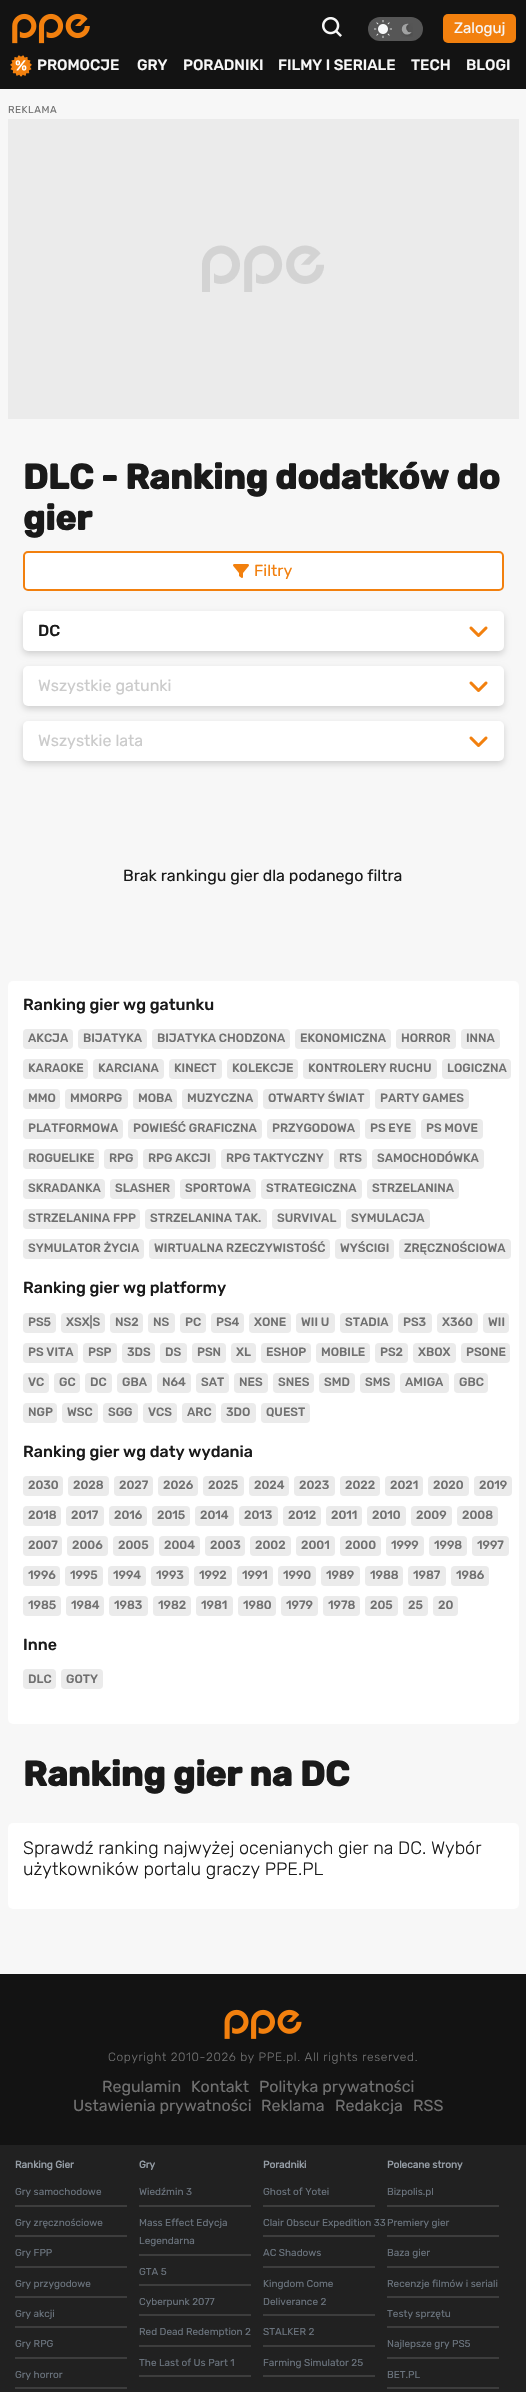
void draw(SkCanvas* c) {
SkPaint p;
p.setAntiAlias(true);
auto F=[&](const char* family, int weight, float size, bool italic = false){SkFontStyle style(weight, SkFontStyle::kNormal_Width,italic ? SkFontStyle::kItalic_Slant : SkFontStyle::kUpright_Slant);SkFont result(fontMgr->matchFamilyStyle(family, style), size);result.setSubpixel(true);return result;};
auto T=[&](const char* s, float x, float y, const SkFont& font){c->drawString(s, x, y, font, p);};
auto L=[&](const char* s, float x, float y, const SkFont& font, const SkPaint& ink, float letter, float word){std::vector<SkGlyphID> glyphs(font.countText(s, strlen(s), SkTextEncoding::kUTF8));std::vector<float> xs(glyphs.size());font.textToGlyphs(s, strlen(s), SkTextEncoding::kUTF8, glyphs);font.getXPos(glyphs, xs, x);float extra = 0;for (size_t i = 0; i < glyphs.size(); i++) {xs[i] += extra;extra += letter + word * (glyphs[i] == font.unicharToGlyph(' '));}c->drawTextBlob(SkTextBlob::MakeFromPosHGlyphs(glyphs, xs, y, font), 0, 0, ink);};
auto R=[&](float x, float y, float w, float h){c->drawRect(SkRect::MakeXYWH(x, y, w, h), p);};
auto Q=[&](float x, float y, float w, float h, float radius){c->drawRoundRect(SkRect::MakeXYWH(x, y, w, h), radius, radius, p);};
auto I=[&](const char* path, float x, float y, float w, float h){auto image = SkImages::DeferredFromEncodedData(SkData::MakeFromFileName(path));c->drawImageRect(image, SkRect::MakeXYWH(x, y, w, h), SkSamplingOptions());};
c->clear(0xfff7f7f7);
p.setColor(0xff131313);
R(0,0,526,89);
I("1.png",12,13,78,31);
I("2.png",322,17,20,20);
p.setColor(0xff565656);
Q(368,17,55,24,12);
I("3.png",374,20,18,18);
I("4.png",401,23,12,14);
p.setColor(0xfff2800e);
Q(443,14,73,29,5);
auto f1 = F("Rubik",300,15);
p.setColor(0xfff7f7f7);
T("Zaloguj",454,33,f1);
I("5.png",10,55,22,22);
auto f2 = F("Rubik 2",300,15);
T("PROMOCJE",37,70,f2);
T("GRY",137,70,f2);
T("PORADNIKI",183,70,f2);
T("FILMY I SERIALE",278,70,f2);
T("TECH",411,70,f2);
T("BLOGI",466,70,f2);
p.setColor(0xffebebeb);
R(8,119,511,300);
I("6.png",202,245,122,47);
auto f3 = F("Rubik",300,10);
p.setColor(0xff707070);
L("REKLAMA",8,113,f3,p,.5,0);
auto f4 = F("Rubik",700,35);
p.setColor(0xff1a1a1a);
T("DLC - Ranking dodatków do",23,489,f4);
T("gier",23,530,f4);
p.setColor(0xffffffff);
c->drawRoundRect(SkRect::MakeXYWH(24,552,479,38),4,4,p);
p.setStroke(true);
p.setStrokeWidth(2);
p.setColor(0xfff2800e);
c->drawRoundRect(SkRect::MakeXYWH(24,552,479,38),4,4,p);
I("7.png",233,564,16,14);
auto f5 = F("Rubik",300,16);
p.setStroke(false);
T("Filtry",254,576,f5);
p.setColor(0x29000000);
p.setMaskFilter(SkMaskFilter::MakeBlur(kNormal_SkBlurStyle, 3));
c->drawRoundRect(SkRect::MakeXYWH(23,614,481,40),5,5,p);
p.setMaskFilter(nullptr);
p.setColor(0xffffffff);
Q(23,611,481,40,5);
auto f6 = F("Rubik 2",300,16);
p.setColor(0xff1a1a1a);
T("DC",38,636,f6);
I("8.png",469,626,19,11);
p.setColor(0x29000000);
p.setMaskFilter(SkMaskFilter::MakeBlur(kNormal_SkBlurStyle, 3));
c->drawRoundRect(SkRect::MakeXYWH(23,669,481,40),5,5,p);
p.setMaskFilter(nullptr);
p.setColor(0xffffffff);
Q(23,666,481,40,5);
p.setColor(0xffcbcbcb);
T("Wszystkie gatunki",38,691,f5);
I("8.png",469,681,19,11);
p.setColor(0x29000000);
p.setMaskFilter(SkMaskFilter::MakeBlur(kNormal_SkBlurStyle, 3));
c->drawRoundRect(SkRect::MakeXYWH(23,724,481,40),5,5,p);
p.setMaskFilter(nullptr);
p.setColor(0xffffffff);
Q(23,721,481,40,5);
p.setColor(0xffcbcbcb);
T("Wszystkie lata",38,746,f5);
I("8.png",469,736,19,11);
p.setColor(0xff1a1a1a);
T("Brak rankingu gier dla podanego filtra",123,881,f5);
p.setColor(0xffffffff);
Q(8,981,511,743,5);
p.setColor(0xff1a1a1a);
T("Ranking gier wg gatunku",23,1010,f6);
p.setColor(0xffebebeb);
Q(23,1029,50,20,4);
auto f7 = F("Rubik 2",300,12);
p.setColor(0xff707070);
T("AKCJA",28,1042,f7);
p.setColor(0xffebebeb);
Q(78,1029,69,20,4);
p.setColor(0xff707070);
T("BIJATYKA",83,1042,f7);
p.setColor(0xffebebeb);
Q(152,1029,138,20,4);
p.setColor(0xff707070);
T("BIJATYKA CHODZONA",157,1042,f7);
p.setColor(0xffebebeb);
Q(295,1029,96,20,4);
p.setColor(0xff707070);
T("EKONOMICZNA",300,1042,f7);
p.setColor(0xffebebeb);
Q(396,1029,60,20,4);
p.setColor(0xff707070);
T("HORROR",401,1042,f7);
p.setColor(0xffebebeb);
Q(461,1029,39,20,4);
p.setColor(0xff707070);
T("INNA",466,1042,f7);
p.setColor(0xffebebeb);
Q(23,1059,65,20,4);
p.setColor(0xff707070);
T("KARAOKE",28,1072,f7);
p.setColor(0xffebebeb);
Q(93,1059,71,20,4);
p.setColor(0xff707070);
T("KARCIANA",98,1072,f7);
p.setColor(0xffebebeb);
Q(169,1059,53,20,4);
p.setColor(0xff707070);
T("KINECT",174,1072,f7);
p.setColor(0xffebebeb);
Q(227,1059,71,20,4);
p.setColor(0xff707070);
T("KOLEKCJE",232,1072,f7);
p.setColor(0xffebebeb);
Q(303,1059,134,20,4);
p.setColor(0xff707070);
T("KONTROLERY RUCHU",308,1072,f7);
p.setColor(0xffebebeb);
Q(442,1059,69,20,4);
p.setColor(0xff707070);
T("LOGICZNA",447,1072,f7);
p.setColor(0xffebebeb);
Q(23,1089,37,20,4);
p.setColor(0xff707070);
T("MMO",28,1102,f7);
p.setColor(0xffebebeb);
Q(65,1089,63,20,4);
p.setColor(0xff707070);
T("MMORPG",70,1102,f7);
p.setColor(0xffebebeb);
Q(133,1089,44,20,4);
p.setColor(0xff707070);
T("MOBA",138,1102,f7);
p.setColor(0xffebebeb);
Q(182,1089,76,20,4);
p.setColor(0xff707070);
T("MUZYCZNA",187,1102,f7);
p.setColor(0xffebebeb);
Q(263,1089,107,20,4);
p.setColor(0xff707070);
T("OTWARTY ŚWIAT",268,1102,f7);
p.setColor(0xffebebeb);
Q(375,1089,94,20,4);
p.setColor(0xff707070);
T("PARTY GAMES",380,1102,f7);
p.setColor(0xffebebeb);
Q(23,1119,100,20,4);
p.setColor(0xff707070);
T("PLATFORMOWA",28,1132,f7);
p.setColor(0xffebebeb);
Q(128,1119,134,20,4);
p.setColor(0xff707070);
T("POWIEŚĆ GRAFICZNA",133,1132,f7);
p.setColor(0xffebebeb);
Q(267,1119,93,20,4);
p.setColor(0xff707070);
T("PRZYGODOWA",272,1132,f7);
p.setColor(0xffebebeb);
Q(365,1119,51,20,4);
p.setColor(0xff707070);
T("PS EYE",370,1132,f7);
p.setColor(0xffebebeb);
Q(421,1119,62,20,4);
p.setColor(0xff707070);
T("PS MOVE",426,1132,f7);
p.setColor(0xffebebeb);
Q(23,1149,76,20,4);
p.setColor(0xff707070);
T("ROGUELIKE",28,1162,f7);
p.setColor(0xffebebeb);
Q(104,1149,34,20,4);
p.setColor(0xff707070);
T("RPG",109,1162,f7);
p.setColor(0xffebebeb);
Q(143,1149,73,20,4);
p.setColor(0xff707070);
T("RPG AKCJI",148,1162,f7);
p.setColor(0xffebebeb);
Q(221,1149,108,20,4);
p.setColor(0xff707070);
T("RPG TAKTYCZNY",226,1162,f7);
p.setColor(0xffebebeb);
Q(334,1149,33,20,4);
p.setColor(0xff707070);
T("RTS",339,1162,f7);
p.setColor(0xffebebeb);
Q(372,1149,112,20,4);
p.setColor(0xff707070);
T("SAMOCHODÓWKA",377,1162,f7);
p.setColor(0xffebebeb);
Q(23,1179,82,20,4);
p.setColor(0xff707070);
T("SKRADANKA",28,1192,f7);
p.setColor(0xffebebeb);
Q(110,1179,65,20,4);
p.setColor(0xff707070);
T("SLASHER",115,1192,f7);
p.setColor(0xffebebeb);
Q(180,1179,76,20,4);
p.setColor(0xff707070);
T("SPORTOWA",185,1192,f7);
p.setColor(0xffebebeb);
Q(261,1179,101,20,4);
p.setColor(0xff707070);
T("STRATEGICZNA",266,1192,f7);
p.setColor(0xffebebeb);
Q(367,1179,92,20,4);
p.setColor(0xff707070);
T("STRZELANINA",372,1192,f7);
p.setColor(0xffebebeb);
Q(23,1209,117,20,4);
p.setColor(0xff707070);
T("STRZELANINA FPP",28,1222,f7);
p.setColor(0xffebebeb);
Q(145,1209,122,20,4);
p.setColor(0xff707070);
T("STRZELANINA TAK.",150,1222,f7);
p.setColor(0xffebebeb);
Q(272,1209,69,20,4);
p.setColor(0xff707070);
T("SURVIVAL",277,1222,f7);
p.setColor(0xffebebeb);
Q(346,1209,84,20,4);
p.setColor(0xff707070);
T("SYMULACJA",351,1222,f7);
p.setColor(0xffebebeb);
Q(23,1239,121,20,4);
p.setColor(0xff707070);
T("SYMULATOR ŻYCIA",28,1252,f7);
p.setColor(0xffebebeb);
Q(149,1239,181,20,4);
p.setColor(0xff707070);
T("WIRTUALNA RZECZYWISTOŚĆ",154,1252,f7);
p.setColor(0xffebebeb);
Q(335,1239,59,20,4);
p.setColor(0xff707070);
T("WYŚCIGI",340,1252,f7);
p.setColor(0xffebebeb);
Q(399,1239,112,20,4);
p.setColor(0xff707070);
T("ZRĘCZNOŚCIOWA",404,1252,f7);
p.setColor(0xff1a1a1a);
T("Ranking gier wg platformy",23,1293,f6);
p.setColor(0xffebebeb);
Q(23,1313,33,20,4);
p.setColor(0xff707070);
T("PS5",28,1326,f7);
p.setColor(0xffebebeb);
Q(61,1313,44,20,4);
p.setColor(0xff707070);
T("XSX|S",66,1326,f7);
p.setColor(0xffebebeb);
Q(110,1313,33,20,4);
p.setColor(0xff707070);
T("NS2",115,1326,f7);
p.setColor(0xffebebeb);
Q(148,1313,27,20,4);
p.setColor(0xff707070);
T("NS",153,1326,f7);
p.setColor(0xffebebeb);
Q(180,1313,26,20,4);
p.setColor(0xff707070);
T("PC",185,1326,f7);
p.setColor(0xffebebeb);
Q(211,1313,33,20,4);
p.setColor(0xff707070);
T("PS4",216,1326,f7);
p.setColor(0xffebebeb);
Q(249,1313,42,20,4);
p.setColor(0xff707070);
T("XONE",254,1326,f7);
p.setColor(0xffebebeb);
Q(296,1313,39,20,4);
p.setColor(0xff707070);
T("WII U",301,1326,f7);
p.setColor(0xffebebeb);
Q(340,1313,53,20,4);
p.setColor(0xff707070);
T("STADIA",345,1326,f7);
p.setColor(0xffebebeb);
Q(398,1313,34,20,4);
p.setColor(0xff707070);
T("PS3",403,1326,f7);
p.setColor(0xffebebeb);
Q(437,1313,41,20,4);
p.setColor(0xff707070);
T("X360",442,1326,f7);
p.setColor(0xffebebeb);
Q(483,1313,26,20,4);
p.setColor(0xff707070);
T("WII",488,1326,f7);
p.setColor(0xffebebeb);
Q(23,1343,55,20,4);
p.setColor(0xff707070);
T("PS VITA",28,1356,f7);
p.setColor(0xffebebeb);
Q(83,1343,34,20,4);
p.setColor(0xff707070);
T("PSP",88,1356,f7);
p.setColor(0xffebebeb);
Q(122,1343,33,20,4);
p.setColor(0xff707070);
T("3DS",127,1356,f7);
p.setColor(0xffebebeb);
Q(160,1343,27,20,4);
p.setColor(0xff707070);
T("DS",165,1356,f7);
p.setColor(0xffebebeb);
Q(192,1343,34,20,4);
p.setColor(0xff707070);
T("PSN",197,1356,f7);
p.setColor(0xffebebeb);
Q(231,1343,25,20,4);
p.setColor(0xff707070);
T("XL",236,1356,f7);
p.setColor(0xffebebeb);
Q(261,1343,50,20,4);
p.setColor(0xff707070);
T("ESHOP",266,1356,f7);
p.setColor(0xffebebeb);
Q(316,1343,54,20,4);
p.setColor(0xff707070);
T("MOBILE",321,1356,f7);
p.setColor(0xffebebeb);
Q(375,1343,33,20,4);
p.setColor(0xff707070);
T("PS2",380,1356,f7);
p.setColor(0xffebebeb);
Q(413,1343,43,20,4);
p.setColor(0xff707070);
T("XBOX",418,1356,f7);
p.setColor(0xffebebeb);
Q(461,1343,49,20,4);
p.setColor(0xff707070);
T("PSONE",466,1356,f7);
p.setColor(0xffebebeb);
Q(23,1373,26,20,4);
p.setColor(0xff707070);
T("VC",28,1386,f7);
p.setColor(0xffebebeb);
Q(54,1373,26,20,4);
p.setColor(0xff707070);
T("GC",59,1386,f7);
p.setColor(0xffebebeb);
Q(85,1373,27,20,4);
p.setColor(0xff707070);
T("DC",90,1386,f7);
p.setColor(0xffebebeb);
Q(117,1373,35,20,4);
p.setColor(0xff707070);
T("GBA",122,1386,f7);
p.setColor(0xffebebeb);
Q(157,1373,34,20,4);
p.setColor(0xff707070);
T("N64",162,1386,f7);
p.setColor(0xffebebeb);
Q(196,1373,33,20,4);
p.setColor(0xff707070);
T("SAT",201,1386,f7);
p.setColor(0xffebebeb);
Q(234,1373,34,20,4);
p.setColor(0xff707070);
T("NES",239,1386,f7);
p.setColor(0xffebebeb);
Q(273,1373,41,20,4);
p.setColor(0xff707070);
T("SNES",278,1386,f7);
p.setColor(0xffebebeb);
Q(319,1373,36,20,4);
p.setColor(0xff707070);
T("SMD",324,1386,f7);
p.setColor(0xffebebeb);
Q(360,1373,35,20,4);
p.setColor(0xff707070);
T("SMS",365,1386,f7);
p.setColor(0xffebebeb);
Q(400,1373,49,20,4);
p.setColor(0xff707070);
T("AMIGA",405,1386,f7);
p.setColor(0xffebebeb);
Q(454,1373,34,20,4);
p.setColor(0xff707070);
T("GBC",459,1386,f7);
p.setColor(0xffebebeb);
Q(23,1403,34,20,4);
p.setColor(0xff707070);
T("NGP",28,1416,f7);
p.setColor(0xffebebeb);
Q(62,1403,36,20,4);
p.setColor(0xff707070);
T("WSC",67,1416,f7);
p.setColor(0xffebebeb);
Q(103,1403,35,20,4);
p.setColor(0xff707070);
T("SGG",108,1416,f7);
p.setColor(0xffebebeb);
Q(143,1403,34,20,4);
p.setColor(0xff707070);
T("VCS",148,1416,f7);
p.setColor(0xffebebeb);
Q(182,1403,34,20,4);
p.setColor(0xff707070);
T("ARC",187,1416,f7);
p.setColor(0xffebebeb);
Q(221,1403,35,20,4);
p.setColor(0xff707070);
T("3DO",226,1416,f7);
p.setColor(0xffebebeb);
Q(261,1403,49,20,4);
p.setColor(0xff707070);
T("QUEST",266,1416,f7);
p.setColor(0xff1a1a1a);
T("Ranking gier wg daty wydania",23,1457,f6);
p.setColor(0xffebebeb);
Q(23,1476,40,20,4);
p.setColor(0xff707070);
T("2030",28,1489,f7);
p.setColor(0xffebebeb);
Q(68,1476,41,20,4);
p.setColor(0xff707070);
T("2028",73,1489,f7);
p.setColor(0xffebebeb);
Q(114,1476,39,20,4);
p.setColor(0xff707070);
T("2027",119,1489,f7);
p.setColor(0xffebebeb);
Q(158,1476,40,20,4);
p.setColor(0xff707070);
T("2026",163,1489,f7);
p.setColor(0xffebebeb);
Q(203,1476,41,20,4);
p.setColor(0xff707070);
T("2025",208,1489,f7);
p.setColor(0xffebebeb);
Q(249,1476,40,20,4);
p.setColor(0xff707070);
T("2024",254,1489,f7);
p.setColor(0xffebebeb);
Q(294,1476,41,20,4);
p.setColor(0xff707070);
T("2023",299,1489,f7);
p.setColor(0xffebebeb);
Q(340,1476,40,20,4);
p.setColor(0xff707070);
T("2022",345,1489,f7);
p.setColor(0xffebebeb);
Q(385,1476,38,20,4);
p.setColor(0xff707070);
T("2021",390,1489,f7);
p.setColor(0xffebebeb);
Q(428,1476,41,20,4);
p.setColor(0xff707070);
T("2020",433,1489,f7);
p.setColor(0xffebebeb);
Q(474,1476,38,20,4);
p.setColor(0xff707070);
T("2019",479,1489,f7);
p.setColor(0xffebebeb);
Q(23,1506,38,20,4);
p.setColor(0xff707070);
T("2018",28,1519,f7);
p.setColor(0xffebebeb);
Q(66,1506,38,20,4);
p.setColor(0xff707070);
T("2017",71,1519,f7);
p.setColor(0xffebebeb);
Q(109,1506,38,20,4);
p.setColor(0xff707070);
T("2016",114,1519,f7);
p.setColor(0xffebebeb);
Q(152,1506,38,20,4);
p.setColor(0xff707070);
T("2015",157,1519,f7);
p.setColor(0xffebebeb);
Q(195,1506,39,20,4);
p.setColor(0xff707070);
T("2014",200,1519,f7);
p.setColor(0xffebebeb);
Q(239,1506,39,20,4);
p.setColor(0xff707070);
T("2013",244,1519,f7);
p.setColor(0xffebebeb);
Q(283,1506,38,20,4);
p.setColor(0xff707070);
T("2012",288,1519,f7);
p.setColor(0xffebebeb);
Q(326,1506,36,20,4);
p.setColor(0xff707070);
T("2011",331,1519,f7);
p.setColor(0xffebebeb);
Q(367,1506,39,20,4);
p.setColor(0xff707070);
T("2010",372,1519,f7);
p.setColor(0xffebebeb);
Q(411,1506,41,20,4);
p.setColor(0xff707070);
T("2009",416,1519,f7);
p.setColor(0xffebebeb);
Q(457,1506,41,20,4);
p.setColor(0xff707070);
T("2008",462,1519,f7);
p.setColor(0xffebebeb);
Q(23,1536,39,20,4);
p.setColor(0xff707070);
T("2007",28,1549,f7);
p.setColor(0xffebebeb);
Q(67,1536,41,20,4);
p.setColor(0xff707070);
T("2006",72,1549,f7);
p.setColor(0xffebebeb);
Q(113,1536,41,20,4);
p.setColor(0xff707070);
T("2005",118,1549,f7);
p.setColor(0xffebebeb);
Q(159,1536,41,20,4);
p.setColor(0xff707070);
T("2004",164,1549,f7);
p.setColor(0xffebebeb);
Q(205,1536,40,20,4);
p.setColor(0xff707070);
T("2003",210,1549,f7);
p.setColor(0xffebebeb);
Q(250,1536,41,20,4);
p.setColor(0xff707070);
T("2002",255,1549,f7);
p.setColor(0xffebebeb);
Q(296,1536,39,20,4);
p.setColor(0xff707070);
T("2001",301,1549,f7);
p.setColor(0xffebebeb);
Q(340,1536,41,20,4);
p.setColor(0xff707070);
T("2000",345,1549,f7);
p.setColor(0xffebebeb);
Q(386,1536,38,20,4);
p.setColor(0xff707070);
T("1999",391,1549,f7);
p.setColor(0xffebebeb);
Q(429,1536,38,20,4);
p.setColor(0xff707070);
T("1998",434,1549,f7);
p.setColor(0xffebebeb);
Q(472,1536,37,20,4);
p.setColor(0xff707070);
T("1997",477,1549,f7);
p.setColor(0xffebebeb);
Q(23,1566,37,20,4);
p.setColor(0xff707070);
T("1996",28,1579,f7);
p.setColor(0xffebebeb);
Q(65,1566,38,20,4);
p.setColor(0xff707070);
T("1995",70,1579,f7);
p.setColor(0xffebebeb);
Q(108,1566,38,20,4);
p.setColor(0xff707070);
T("1994",113,1579,f7);
p.setColor(0xffebebeb);
Q(151,1566,38,20,4);
p.setColor(0xff707070);
T("1993",156,1579,f7);
p.setColor(0xffebebeb);
Q(194,1566,38,20,4);
p.setColor(0xff707070);
T("1992",199,1579,f7);
p.setColor(0xffebebeb);
Q(237,1566,36,20,4);
p.setColor(0xff707070);
T("1991",242,1579,f7);
p.setColor(0xffebebeb);
Q(278,1566,38,20,4);
p.setColor(0xff707070);
T("1990",283,1579,f7);
p.setColor(0xffebebeb);
Q(321,1566,39,20,4);
p.setColor(0xff707070);
T("1989",326,1579,f7);
p.setColor(0xffebebeb);
Q(365,1566,38,20,4);
p.setColor(0xff707070);
T("1988",370,1579,f7);
p.setColor(0xffebebeb);
Q(408,1566,38,20,4);
p.setColor(0xff707070);
T("1987",413,1579,f7);
p.setColor(0xffebebeb);
Q(451,1566,38,20,4);
p.setColor(0xff707070);
T("1986",456,1579,f7);
p.setColor(0xffebebeb);
Q(23,1596,38,20,4);
p.setColor(0xff707070);
T("1985",28,1609,f7);
p.setColor(0xffebebeb);
Q(66,1596,38,20,4);
p.setColor(0xff707070);
T("1984",71,1609,f7);
p.setColor(0xffebebeb);
Q(109,1596,39,20,4);
p.setColor(0xff707070);
T("1983",114,1609,f7);
p.setColor(0xffebebeb);
Q(153,1596,38,20,4);
p.setColor(0xff707070);
T("1982",158,1609,f7);
p.setColor(0xffebebeb);
Q(196,1596,37,20,4);
p.setColor(0xff707070);
T("1981",201,1609,f7);
p.setColor(0xffebebeb);
Q(238,1596,38,20,4);
p.setColor(0xff707070);
T("1980",243,1609,f7);
p.setColor(0xffebebeb);
Q(281,1596,37,20,4);
p.setColor(0xff707070);
T("1979",286,1609,f7);
p.setColor(0xffebebeb);
Q(323,1596,37,20,4);
p.setColor(0xff707070);
T("1978",328,1609,f7);
p.setColor(0xffebebeb);
Q(365,1596,33,20,4);
p.setColor(0xff707070);
T("205",370,1609,f7);
p.setColor(0xffebebeb);
Q(403,1596,25,20,4);
p.setColor(0xff707070);
T("25",408,1609,f7);
p.setColor(0xffebebeb);
Q(433,1596,25,20,4);
p.setColor(0xff707070);
T("20",438,1609,f7);
p.setColor(0xff1a1a1a);
T("Inne",23,1650,f6);
p.setColor(0xffebebeb);
Q(23,1669,33,20,4);
p.setColor(0xff707070);
T("DLC",28,1683,f7);
p.setColor(0xffebebeb);
Q(61,1669,42,20,4);
p.setColor(0xff707070);
T("GOTY",66,1683,f7);
p.setColor(0xff1a1a1a);
T("Ranking gier na DC",23,1786,f4);
p.setColor(0xffffffff);
Q(8,1823,511,86,5);
auto f8 = F("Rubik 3",300,18);
p.setColor(0xff1a1a1a);
T("Sprawdź ranking najwyżej ocenianych gier na DC. Wybór",23,1854,f8);
T("użytkowników portalu graczy PPE.PL",23,1875,f8);
p.setColor(0xff212121);
R(0,2145,526,247);
p.setColor(0xff131313);
R(0,1974,526,171);
I("9.png",224,2009,78,30);
auto f9 = F("Rubik 3",300,12);
p.setColor(0xff707070);
L("Copyright 2010-2026 by PPE.pl. All rights reserved.",108,2061,f9,p,.65,0);
T("Regulamin",102,2092,f5);
T("Kontakt",191,2092,f5);
T("Polityka prywatności",259,2092,f5);
T("Ustawienia prywatności",73,2111,f5);
T("Reklama",261,2111,f5);
T("Redakcja",335,2111,f5);
T("RSS",413,2111,f5);
auto f10 = F("Rubik 2",700,10);
p.setColor(0xff959da5);
T("Ranking Gier",15,2168,f10);
p.setColor(0xff6a737d);
T("Gry samochodowe",15,2195,f3);
p.setColor(0xff3d3d3d);
R(15,2205,112,2);
p.setColor(0xff6a737d);
T("Gry zręcznościowe",15,2226,f3);
p.setColor(0xff3d3d3d);
R(15,2235,112,2);
p.setColor(0xff6a737d);
T("Gry FPP",15,2256,f3);
p.setColor(0xff3d3d3d);
R(15,2266,112,2);
p.setColor(0xff6a737d);
T("Gry przygodowe",15,2287,f3);
p.setColor(0xff3d3d3d);
R(15,2296,112,2);
p.setColor(0xff6a737d);
T("Gry akcji",15,2317,f3);
p.setColor(0xff3d3d3d);
R(15,2326,112,2);
p.setColor(0xff6a737d);
T("Gry RPG",15,2347,f3);
p.setColor(0xff3d3d3d);
R(15,2357,112,2);
p.setColor(0xff6a737d);
T("Gry horror",15,2378,f3);
p.setColor(0xff3d3d3d);
R(15,2387,112,2);
p.setColor(0xff959da5);
T("Gry",139,2168,f10);
p.setColor(0xff6a737d);
T("Wiedźmin 3",139,2195,f3);
p.setColor(0xff3d3d3d);
R(139,2205,112,2);
p.setColor(0xff6a737d);
T("Mass Effect Edycja",139,2226,f3);
T("Legendarna",139,2244,f3);
p.setColor(0xff3d3d3d);
R(139,2254,112,2);
p.setColor(0xff6a737d);
T("GTA 5",139,2275,f3);
p.setColor(0xff3d3d3d);
R(139,2284,112,2);
p.setColor(0xff6a737d);
T("Cyberpunk 2077",139,2305,f3);
p.setColor(0xff3d3d3d);
R(139,2314,112,2);
p.setColor(0xff6a737d);
T("Red Dead Redemption 2",139,2335,f3);
p.setColor(0xff3d3d3d);
R(139,2345,112,2);
p.setColor(0xff6a737d);
T("The Last of Us Part 1",139,2366,f3);
p.setColor(0xff3d3d3d);
R(139,2375,112,2);
p.setColor(0xff959da5);
T("Poradniki",263,2168,f10);
p.setColor(0xff6a737d);
T("Ghost of Yotei",263,2195,f3);
p.setColor(0xff3d3d3d);
R(263,2205,112,2);
p.setColor(0xff6a737d);
T("Clair Obscur Expedition 33",263,2226,f3);
p.setColor(0xff3d3d3d);
R(263,2235,112,2);
p.setColor(0xff6a737d);
T("AC Shadows",263,2256,f3);
p.setColor(0xff3d3d3d);
R(263,2266,112,2);
p.setColor(0xff6a737d);
T("Kingdom Come",263,2287,f3);
T("Deliverance 2",263,2305,f3);
p.setColor(0xff3d3d3d);
R(263,2314,112,2);
p.setColor(0xff6a737d);
T("STALKER 2",263,2335,f3);
p.setColor(0xff3d3d3d);
R(263,2345,112,2);
p.setColor(0xff6a737d);
T("Farming Simulator 25",263,2366,f3);
p.setColor(0xff3d3d3d);
R(263,2375,112,2);
p.setColor(0xff959da5);
T("Polecane strony",387,2168,f10);
p.setColor(0xff6a737d);
T("Bizpolis.pl",387,2195,f3);
p.setColor(0xff3d3d3d);
R(387,2205,112,2);
p.setColor(0xff6a737d);
T("Premiery gier",387,2226,f3);
p.setColor(0xff3d3d3d);
R(387,2235,112,2);
p.setColor(0xff6a737d);
T("Baza gier",387,2256,f3);
p.setColor(0xff3d3d3d);
R(387,2266,112,2);
p.setColor(0xff6a737d);
T("Recenzje filmów i seriali",387,2287,f3);
p.setColor(0xff3d3d3d);
R(387,2296,112,2);
p.setColor(0xff6a737d);
T("Testy sprzętu",387,2317,f3);
p.setColor(0xff3d3d3d);
R(387,2326,112,2);
p.setColor(0xff6a737d);
T("Najlepsze gry PS5",387,2347,f3);
p.setColor(0xff3d3d3d);
R(387,2357,112,2);
p.setColor(0xff6a737d);
T("BET.PL",387,2378,f3);
p.setColor(0xff3d3d3d);
R(387,2387,112,2);
}
